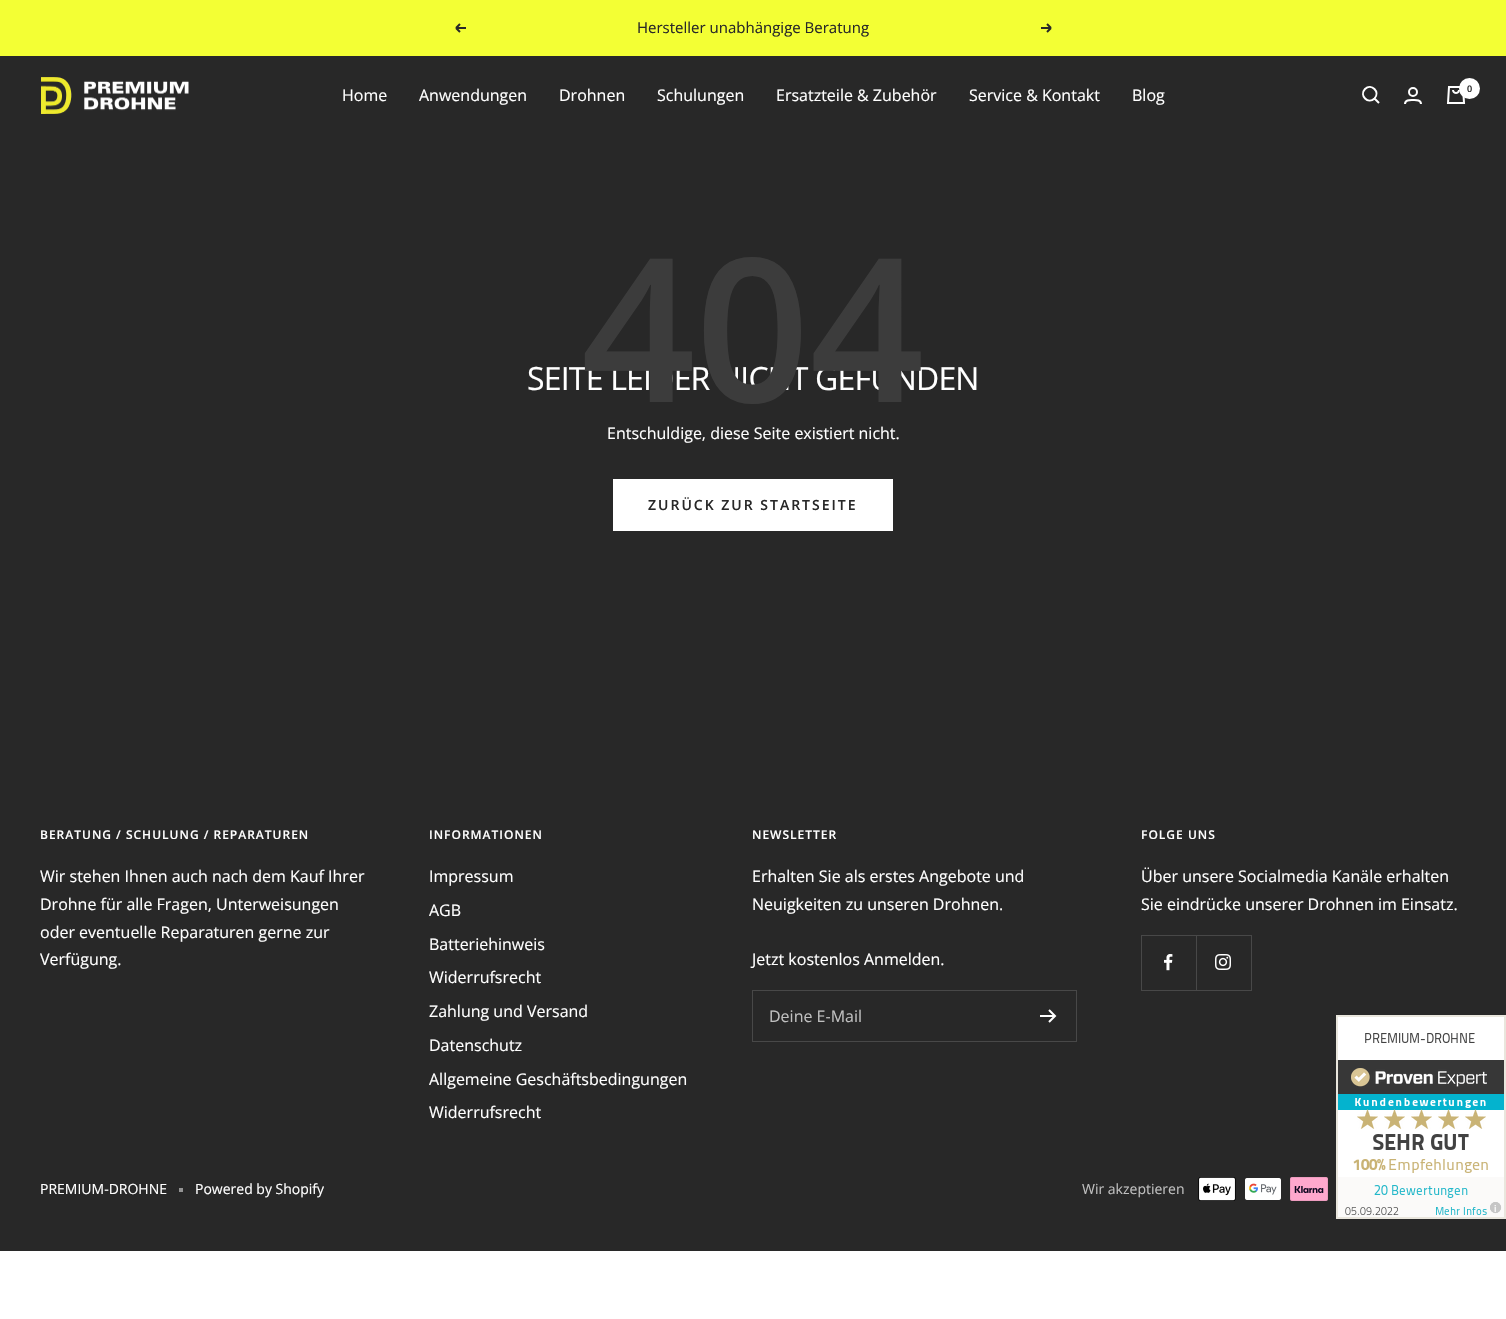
void draw(SkCanvas* c) {
SkPaint p;
p.setAntiAlias(true);
auto F=[&](const char* family, int weight, float size, bool italic = false){SkFontStyle style(weight, SkFontStyle::kNormal_Width,italic ? SkFontStyle::kItalic_Slant : SkFontStyle::kUpright_Slant);SkFont result(fontMgr->matchFamilyStyle(family, style), size);result.setSubpixel(true);return result;};
auto T=[&](const char* s, float x, float y, const SkFont& font){c->drawString(s, x, y, font, p);};
auto L=[&](const char* s, float x, float y, const SkFont& font, const SkPaint& ink, float letter, float word){std::vector<SkGlyphID> glyphs(font.countText(s, strlen(s), SkTextEncoding::kUTF8));std::vector<float> xs(glyphs.size());font.textToGlyphs(s, strlen(s), SkTextEncoding::kUTF8, glyphs);font.getXPos(glyphs, xs, x);float extra = 0;for (size_t i = 0; i < glyphs.size(); i++) {xs[i] += extra;extra += letter + word * (glyphs[i] == font.unicharToGlyph(' '));}c->drawTextBlob(SkTextBlob::MakeFromPosHGlyphs(glyphs, xs, y, font), 0, 0, ink);};
auto R=[&](float x, float y, float w, float h){c->drawRect(SkRect::MakeXYWH(x, y, w, h), p);};
auto I=[&](const char* path, float x, float y, float w, float h){auto image = SkImages::DeferredFromEncodedData(SkData::MakeFromFileName(path));c->drawImageRect(image, SkRect::MakeXYWH(x, y, w, h), SkSamplingOptions());};
auto P=[&](const char* data, bool evenOdd = false){SkPath result = *SkParsePath::FromSVGString(data);if (evenOdd) result.setFillType(SkPathFillType::kEvenOdd);return result;};
c->clear(0xffffffff);
p.setColor(0xfff3ff34);
R(0,0,1506,56);
p.setStroke(true);
p.setStrokeWidth(2);
p.setColor(0xff282828);
c->drawPath(P("M466 28h-10m0 0l4 4m-4-4l4-4"),p);
auto f1 = F("Open Sans",400,15);
p.setStroke(false);
T("Hersteller unabhängige Beratung",637,33,f1);
p.setStroke(true);
c->drawPath(P("M1041 28h10m0 0l-4 4m4-4l-4-4"),p);
p.setStroke(false);
R(0,56,1506,1195);
I("1.png",41,77,148,37);
auto f2 = F("Open Sans",400,16);
p.setColor(0xffffffff);
T("Home",342,101,f2);
T("Anwendungen",419,101,f2);
T("Drohnen",559,101,f2);
T("Schulungen",657,101,f2);
T("Ersatzteile & Zubehör",776,101,f2);
T("Service & Kontakt",969,101,f2);
T("Blog",1132,101,f2);
p.setStroke(true);
c->drawPath(P("M1374.5 98.5c6-6.5-3-15.5-9.5-9.5c-6 6.5 3 15.5 9.5 9.5zm0 0l4.5 4.5"),p);
c->drawCircle(1413,92,4,p);
c->drawPath(P("M1405 104c0-4.5 5-4 8-4c3 0 8-.5 8 4"),p);
I("2.png",1446,86,20,18);
p.setStroke(false);
c->drawCircle(1469.5,88.5,10.5,p);
auto f3 = F("Open Sans",600,9);
p.setColor(0xff282828);
T("0",1467,92,f3);
auto f4 = F("Open Sans",400,32);
p.setColor(0xffffffff);
L("SEITE LEIDER NICHT GEFUNDEN",527,390,f4,p,-.8,0);
auto f5 = F("Open Sans",600,200);
p.setColor(0xff3c3c3c);
T("404",581,402,f5);
p.setColor(0xffffffff);
T("Entschuldige, diese Seite existiert nicht.",607,439,f2);
R(613,479,280,52);
auto f6 = F("Open Sans",600,14);
p.setColor(0xff282828);
L("ZURÜCK ZUR STARTSEITE",648,510,f6,p,2,0);
auto f7 = F("Open Sans",600,12);
p.setColor(0xffffffff);
L("BERATUNG / SCHULUNG / REPARATUREN",40,839,f7,p,1,0);
T("Wir stehen Ihnen auch nach dem Kauf Ihrer",40,882,f2);
T("Drohne für alle Fragen, Unterweisungen",40,910,f2);
T("oder eventuelle Reparaturen gerne zur",40,938,f2);
T("Verfügung.",40,965,f2);
L("INFORMATIONEN",429,839,f7,p,1,0);
T("Impressum",429,882,f2);
T("AGB",429,916,f2);
T("Batteriehinweis",429,950,f2);
T("Widerrufsrecht",429,983,f2);
T("Zahlung und Versand",429,1017,f2);
T("Datenschutz",429,1051,f2);
T("Allgemeine Geschäftsbedingungen",429,1085,f2);
T("Widerrufsrecht",429,1118,f2);
L("NEWSLETTER",752,839,f7,p,1,0);
T("Erhalten Sie als erstes Angebote und",752,882,f2);
T("Neuigkeiten zu unseren Drohnen.",752,910,f2);
T("Jetzt kostenlos Anmelden.",752,965,f2);
p.setStroke(true);
p.setStrokeWidth(1);
p.setColor(0xff484848);
c->drawRect(SkRect::MakeXYWH(752.5,990.5,324,51),p);
p.setStroke(false);
p.setColor(0xffbfbfbf);
T("Deine E-Mail",769,1022,f2);
p.setStroke(true);
p.setStrokeWidth(2);
p.setColor(0xffffffff);
c->drawPath(P("M1040 1016h15m-6-6l6 6l-6 6"),p);
p.setStroke(false);
L("FOLGE UNS",1141,839,f7,p,1,0);
T("Über unsere Socialmedia Kanäle erhalten",1141,882,f2);
T("Sie eindrücke unserer Drohnen im Einsatz.",1141,910,f2);
p.setColor(0xff484848);
c->drawPath(P("M1142 990v1h55v-55h-1v54z"),p);
R(1141,990,1,1);
R(1141,935,56,1);
R(1141,935,1,55);
I("3.png",1164,954,9,17);
c->drawPath(P("M1197 990v1h55v-55h-1v54z"),p);
R(1196,935,56,1);
I("4.png",1215,954,16,16);
auto f8 = F("Open Sans",400,14);
p.setColor(0xffffffff);
T("PREMIUM-DROHNE",40,1194,f8);
p.setColor(0xff949494);
R(179,1188,4,4);
p.setColor(0xffffffff);
T("Powered by Shopify",195,1194,f8);
p.setColor(0xffbfbfbf);
T("Wir akzeptieren",1082,1194,f8);
I("5.png",1198,1177,38,24);
I("6.png",1245,1178,36,22);
I("7.png",1290,1177,38,24);
I("8.png",1336,1015,170,204);
}
